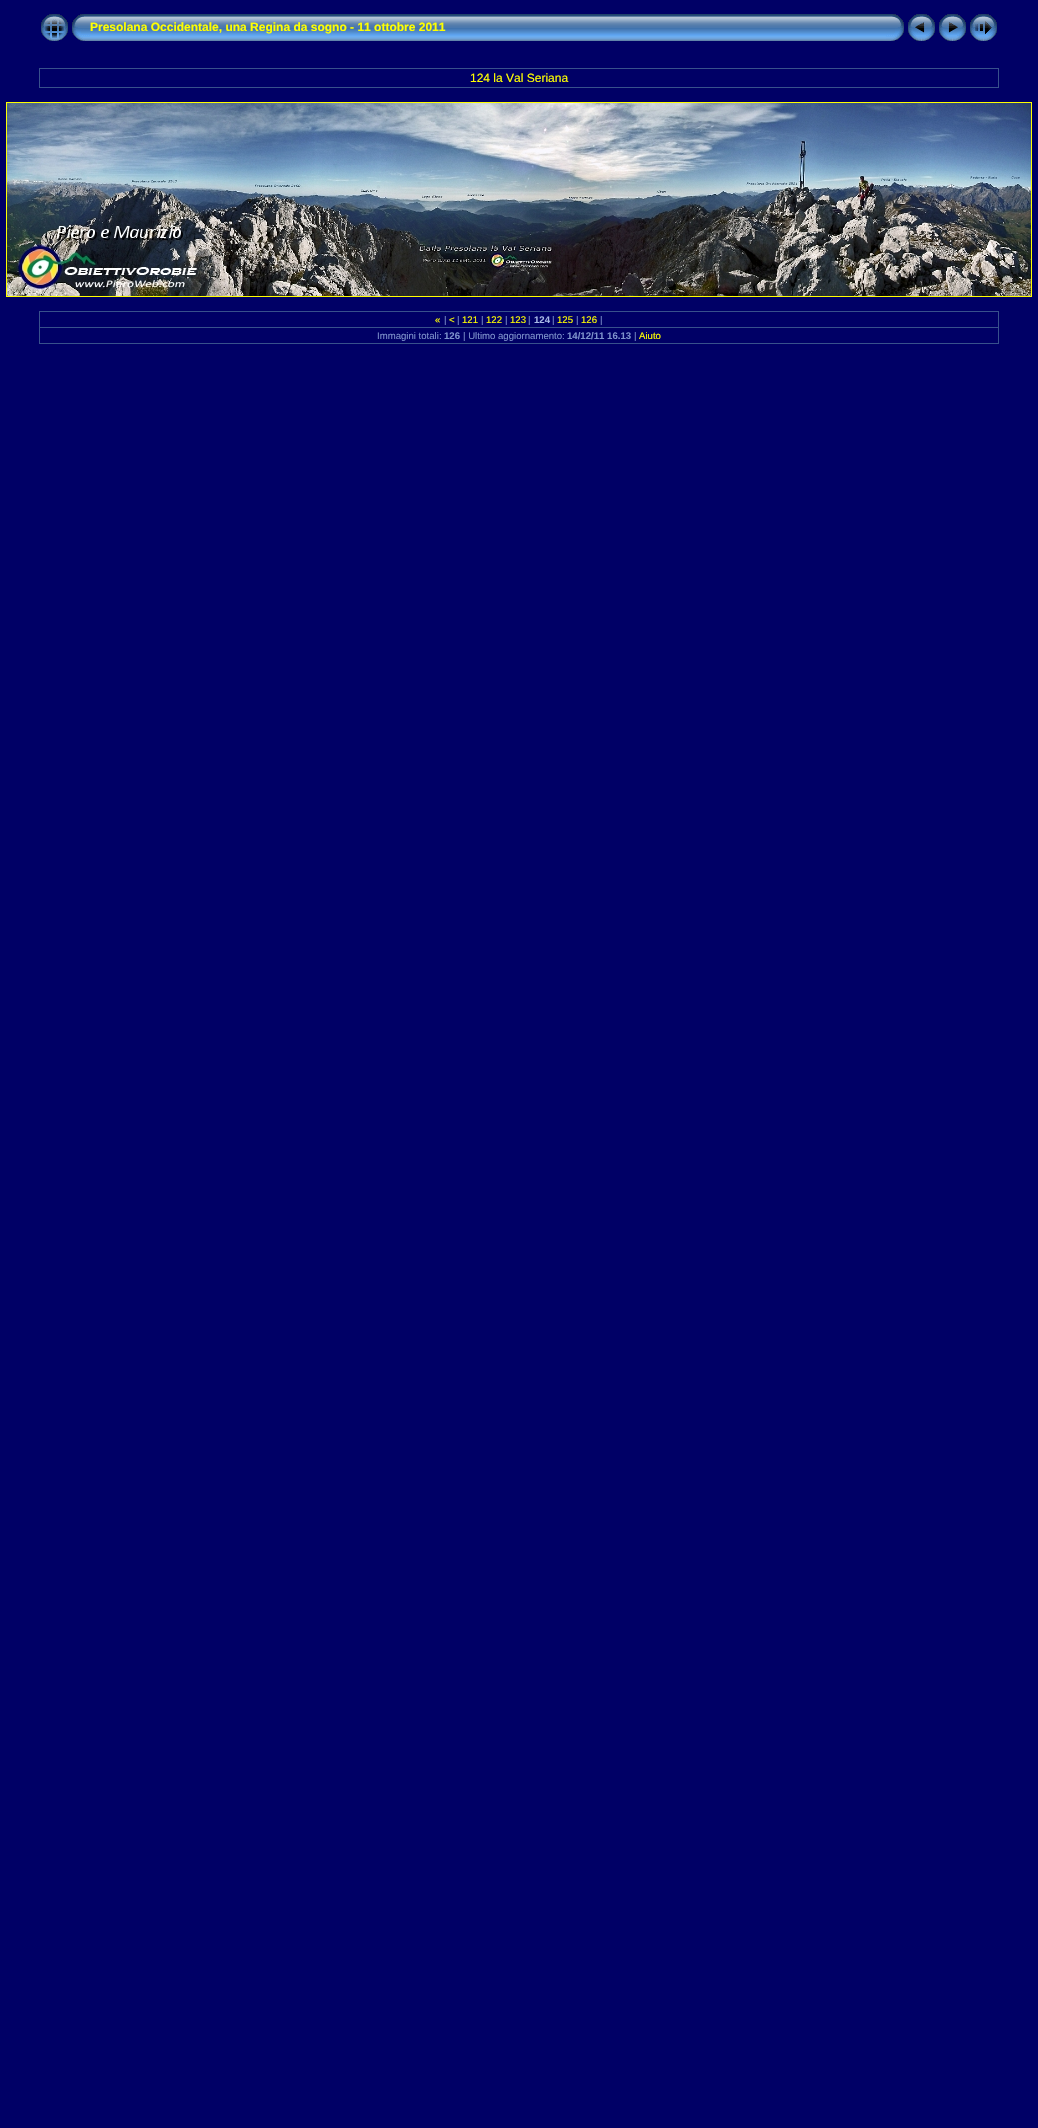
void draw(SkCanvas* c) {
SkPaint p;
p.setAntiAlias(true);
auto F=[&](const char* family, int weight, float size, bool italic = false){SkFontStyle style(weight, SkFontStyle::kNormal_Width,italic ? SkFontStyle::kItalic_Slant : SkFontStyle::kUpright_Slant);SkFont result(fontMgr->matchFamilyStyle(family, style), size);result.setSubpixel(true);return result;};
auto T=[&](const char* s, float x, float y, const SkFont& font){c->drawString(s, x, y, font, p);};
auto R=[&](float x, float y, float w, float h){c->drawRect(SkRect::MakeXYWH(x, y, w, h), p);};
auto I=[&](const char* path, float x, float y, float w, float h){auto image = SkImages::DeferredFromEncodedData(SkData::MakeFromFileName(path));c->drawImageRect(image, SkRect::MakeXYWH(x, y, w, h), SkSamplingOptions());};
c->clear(0xff000066);
I("1.png",41,14,27,27);
I("2.png",72,14,18,27);
I("3.png",90,14,796,27);
auto f1 = F("Liberation Sans",700,12);
p.setColor(0xffffff00);
T("Presolana Occidentale, una Regina da sogno - 11 ottobre 2011",90,31,f1);
I("4.png",886,14,18,27);
I("5.png",908,14,27,27);
I("6.png",939,14,27,27);
I("7.png",970,14,27,27);
p.setColor(0xff38518c);
R(39,68,960,1);
R(998,68,1,20);
R(39,87,960,1);
R(39,68,1,20);
auto f2 = F("Liberation Sans",400,12);
p.setColor(0xffffff00);
T("124 la Val Seriana",470,82,f2);
p.setStroke(true);
p.setStrokeWidth(1);
c->drawRect(SkRect::MakeXYWH(6.5,102.5,1025,194),p);
I("8.png",7,103,1024,193);
p.setStroke(false);
p.setColor(0xff38518c);
R(39,311,960,1);
R(39,327,960,1);
R(998,327,1,17);
R(998,311,1,17);
R(39,343,960,1);
R(39,327,1,17);
R(39,311,1,17);
auto f3 = F("Liberation Sans",400,9.6);
p.setColor(0xffffff00);
T("«",435,323,f3);
p.setColor(0xff7e93cc);
T("|",444,323,f3);
p.setColor(0xffffff00);
T("<",449,323,f3);
p.setColor(0xff7e93cc);
T("|",457,323,f3);
p.setColor(0xffffff00);
T("121",462,323,f3);
p.setColor(0xff7e93cc);
T("|",481,323,f3);
p.setColor(0xffffff00);
T("122",486,323,f3);
p.setColor(0xff7e93cc);
T("|",505,323,f3);
p.setColor(0xffffff00);
T("123",510,323,f3);
p.setColor(0xff7e93cc);
T("|",528,323,f3);
auto f4 = F("Liberation Sans",700,9.6);
p.setColor(0xffa9bae7);
T("124",534,323,f4);
p.setColor(0xff7e93cc);
T("|",552,323,f3);
p.setColor(0xffffff00);
T("125",557,323,f3);
p.setColor(0xff7e93cc);
T("|",576,323,f3);
p.setColor(0xffffff00);
T("126",581,323,f3);
p.setColor(0xff7e93cc);
T("|",600,323,f3);
T("Immagini totali:",377,339,f3);
T("126",444,339,f4);
T("| Ultimo aggiornamento:",463,339,f3);
T("14/12/11 16.13",567,339,f4);
T("|",634,339,f3);
p.setColor(0xffffff00);
T("Aiuto",639,339,f3);
}
